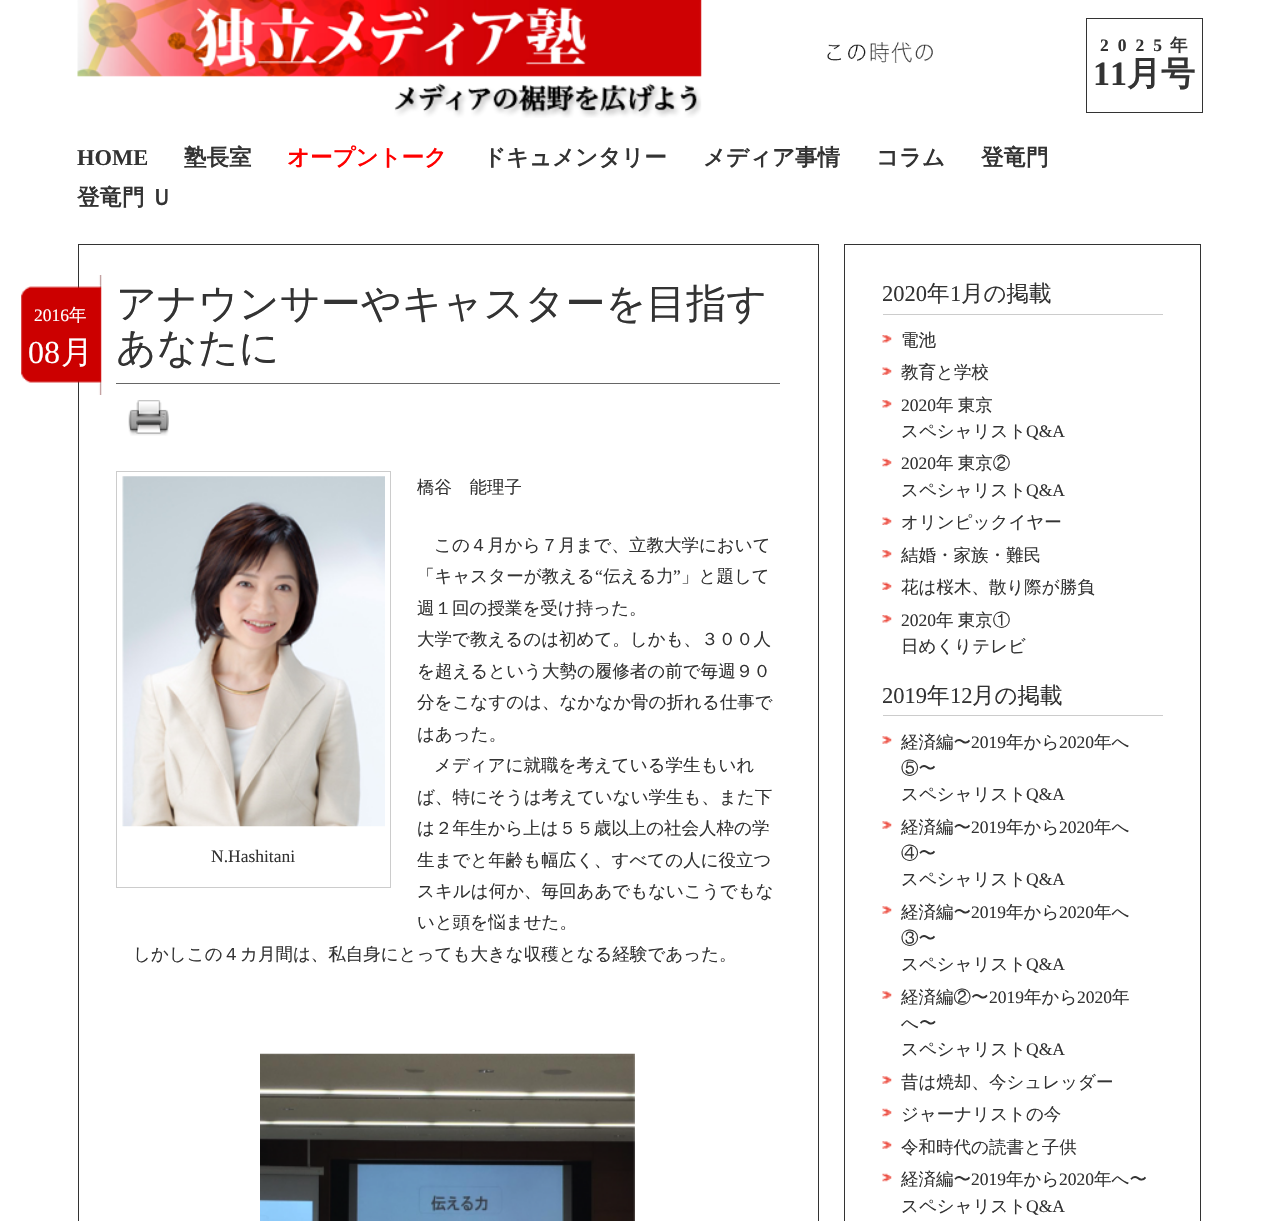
void draw(SkCanvas* c) {
SkPaint p;
p.setAntiAlias(true);
auto F=[&](const char* family, int weight, float size, bool italic = false){SkFontStyle style(weight, SkFontStyle::kNormal_Width,italic ? SkFontStyle::kItalic_Slant : SkFontStyle::kUpright_Slant);SkFont result(fontMgr->matchFamilyStyle(family, style), size);result.setSubpixel(true);return result;};
auto T=[&](const char* s, float x, float y, const SkFont& font){c->drawString(s, x, y, font, p);};
auto L=[&](const char* s, float x, float y, const SkFont& font, const SkPaint& ink, float letter, float word){std::vector<SkGlyphID> glyphs(font.countText(s, strlen(s), SkTextEncoding::kUTF8));std::vector<float> xs(glyphs.size());font.textToGlyphs(s, strlen(s), SkTextEncoding::kUTF8, glyphs);font.getXPos(glyphs, xs, x);float extra = 0;for (size_t i = 0; i < glyphs.size(); i++) {xs[i] += extra;extra += letter + word * (glyphs[i] == font.unicharToGlyph(' '));}c->drawTextBlob(SkTextBlob::MakeFromPosHGlyphs(glyphs, xs, y, font), 0, 0, ink);};
auto R=[&](float x, float y, float w, float h){c->drawRect(SkRect::MakeXYWH(x, y, w, h), p);};
auto I=[&](const char* path, float x, float y, float w, float h){auto image = SkImages::DeferredFromEncodedData(SkData::MakeFromFileName(path));c->drawImageRect(image, SkRect::MakeXYWH(x, y, w, h), SkSamplingOptions());};
c->clear(0xffffffff);
I("1.png",77,0,625,118);
I("2.png",827,41,106,22);
p.setStroke(true);
p.setStrokeWidth(1);
p.setColor(0xff333333);
c->drawRect(SkRect::MakeXYWH(1086.5,18.5,116,94),p);
auto f1 = F("Liberation Serif",700,17.5);
p.setStroke(false);
L("2025",1100,51,f1,p,9,0);
auto f2 = F("WenQuanYi Zen Hei",700,17.5);
L("年",1170,51,f2,p,9,0);
auto f3 = F("Liberation Serif",700,34);
T("11",1093,85,f3);
auto f4 = F("WenQuanYi Zen Hei",700,34);
T("月号",1127,85,f4);
auto f5 = F("Liberation Serif",700,22.5);
T("HOME",77,165,f5);
auto f6 = F("WenQuanYi Zen Hei",700,22.5);
T("塾長室",184,165,f6);
p.setColor(0xffff0000);
T("オープントーク",287,165,f6);
p.setColor(0xff333333);
T("ドキュメンタリー",483,165,f6);
T("メディア事情",703,165,f6);
T("コラム",876,165,f6);
T("登竜門",981,165,f6);
L("登竜門 Ｕ",77,205,f6,p,0,-1);
p.setStroke(true);
c->drawRect(SkRect::MakeXYWH(78.5,244.5,740,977),p);
I("3.png",21,275,81,120);
auto f7 = F("Liberation Serif",400,17.5);
p.setStroke(false);
p.setColor(0xffffffff);
T("2016",34,321,f7);
auto f8 = F("WenQuanYi Zen Hei",500,17.5);
T("年",69,321,f8);
auto f9 = F("Liberation Serif",400,32);
T("08",28,363,f9);
auto f10 = F("WenQuanYi Zen Hei",500,32);
T("月",61,363,f10);
p.setColor(0xff666666);
R(116,383,664,1);
auto f11 = F("WenQuanYi Zen Hei",500,40);
p.setColor(0xff333333);
T("アナウンサーやキャスターを目指す",116,317,f11);
T("あなたに",116,361,f11);
I("4.png",128,400,41,36);
T("橋谷　能理子",417,493,f8);
T("この４月から７月まで、立教大学において",434,551,f8);
T("「キャスターが教える",417,582,f8);
T("“",595,582,f7);
T("伝える力",603,582,f8);
T("”",673,582,f7);
T("」と題して",681,582,f8);
T("週１回の授業を受け持った。",417,614,f8);
T("大学で教えるのは初めて。しかも、３００人",417,645,f8);
T("を超えるという大勢の履修者の前で毎週９０",417,677,f8);
T("分をこなすのは、なかなか骨の折れる仕事で",417,708,f8);
T("はあった。",417,740,f8);
T("メディアに就職を考えている学生もいれ",434,771,f8);
T("ば、特にそうは考えていない学生も、また下",417,803,f8);
T("は２年生から上は５５歳以上の社会人枠の学",417,834,f8);
T("生までと年齢も幅広く、すべての人に役立つ",417,866,f8);
T("スキルは何か、毎回ああでもないこうでもな",417,897,f8);
T("いと頭を悩ませた。",417,928,f8);
T("しかしこの４カ月間は、私自身にとっても大きな収穫となる経験であった。",133,960,f8);
p.setStroke(true);
p.setColor(0xffcccccc);
c->drawRect(SkRect::MakeXYWH(116.5,471.5,274,416),p);
I("5.png",122,476,263,351);
p.setStroke(false);
p.setColor(0xff333333);
T("N.Hashitani",211,862,f7);
I("6.png",260,1053,375,168);
p.setStroke(true);
c->drawRect(SkRect::MakeXYWH(844.5,244.5,356,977),p);
p.setStroke(false);
p.setColor(0xffcccccc);
R(883,314,280,1);
auto f12 = F("Liberation Serif",400,22.5);
p.setColor(0xff333333);
T("2020",882,301,f12);
auto f13 = F("WenQuanYi Zen Hei",500,22.5);
T("年",927,301,f13);
T("1",950,301,f12);
T("月の掲載",961,301,f13);
I("7.png",882,335,10,8);
T("電池",901,346,f8);
I("8.png",882,367,10,8);
T("教育と学校",901,378,f8);
I("7.png",882,400,10,8);
T("2020",901,411,f7);
L("年 東京",936,411,f8,p,0,-1);
T("スペシャリスト",901,437,f8);
T("Q&A",1026,437,f7);
I("9.png",882,458,10,9);
T("2020",901,469,f7);
L("年 東京②",936,469,f8,p,0,-1);
T("スペシャリスト",901,496,f8);
T("Q&A",1026,496,f7);
I("8.png",882,517,10,8);
T("オリンピックイヤー",901,528,f8);
I("7.png",882,550,10,8);
T("結婚・家族・難民",901,561,f8);
I("8.png",882,582,10,8);
T("花は桜木、散り際が勝負",901,593,f8);
I("7.png",882,615,10,8);
T("2020",901,626,f7);
L("年 東京①",936,626,f8,p,0,-1);
T("日めくりテレビ",901,652,f8);
p.setColor(0xffcccccc);
R(883,715,280,1);
p.setColor(0xff333333);
T("2019",882,703,f12);
T("年",927,703,f13);
T("12",950,703,f12);
T("月の掲載",972,703,f13);
I("10.png",882,736,10,8);
T("経済編〜",901,748,f8);
T("2019",971,748,f7);
T("年から",1006,748,f8);
T("2020",1059,748,f7);
T("年へ",1094,748,f8);
T("⑤〜",901,774,f8);
T("スペシャリスト",901,800,f8);
T("Q&A",1026,800,f7);
I("10.png",882,821,10,8);
T("経済編〜",901,833,f8);
T("2019",971,833,f7);
T("年から",1006,833,f8);
T("2020",1059,833,f7);
T("年へ",1094,833,f8);
T("④〜",901,859,f8);
T("スペシャリスト",901,885,f8);
T("Q&A",1026,885,f7);
I("10.png",882,906,10,8);
T("経済編〜",901,918,f8);
T("2019",971,918,f7);
T("年から",1006,918,f8);
T("2020",1059,918,f7);
T("年へ",1094,918,f8);
T("③〜",901,944,f8);
T("スペシャリスト",901,970,f8);
T("Q&A",1026,970,f7);
I("10.png",882,991,10,8);
T("経済編②〜",901,1003,f8);
T("2019",989,1003,f7);
T("年から",1024,1003,f8);
T("2020",1077,1003,f7);
T("年",1112,1003,f8);
T("へ〜",901,1029,f8);
T("スペシャリスト",901,1055,f8);
T("Q&A",1026,1055,f7);
I("10.png",882,1076,10,8);
T("昔は焼却、今シュレッダー",901,1088,f8);
I("9.png",882,1108,10,9);
T("ジャーナリストの今",901,1120,f8);
I("10.png",882,1141,10,8);
T("令和時代の読書と子供",901,1153,f8);
I("11.png",882,1173,10,9);
T("経済編〜",901,1185,f8);
T("2019",971,1185,f7);
T("年から",1006,1185,f8);
T("2020",1059,1185,f7);
T("年へ〜",1094,1185,f8);
T("スペシャリスト",901,1212,f8);
T("Q&A",1026,1212,f7);
}
